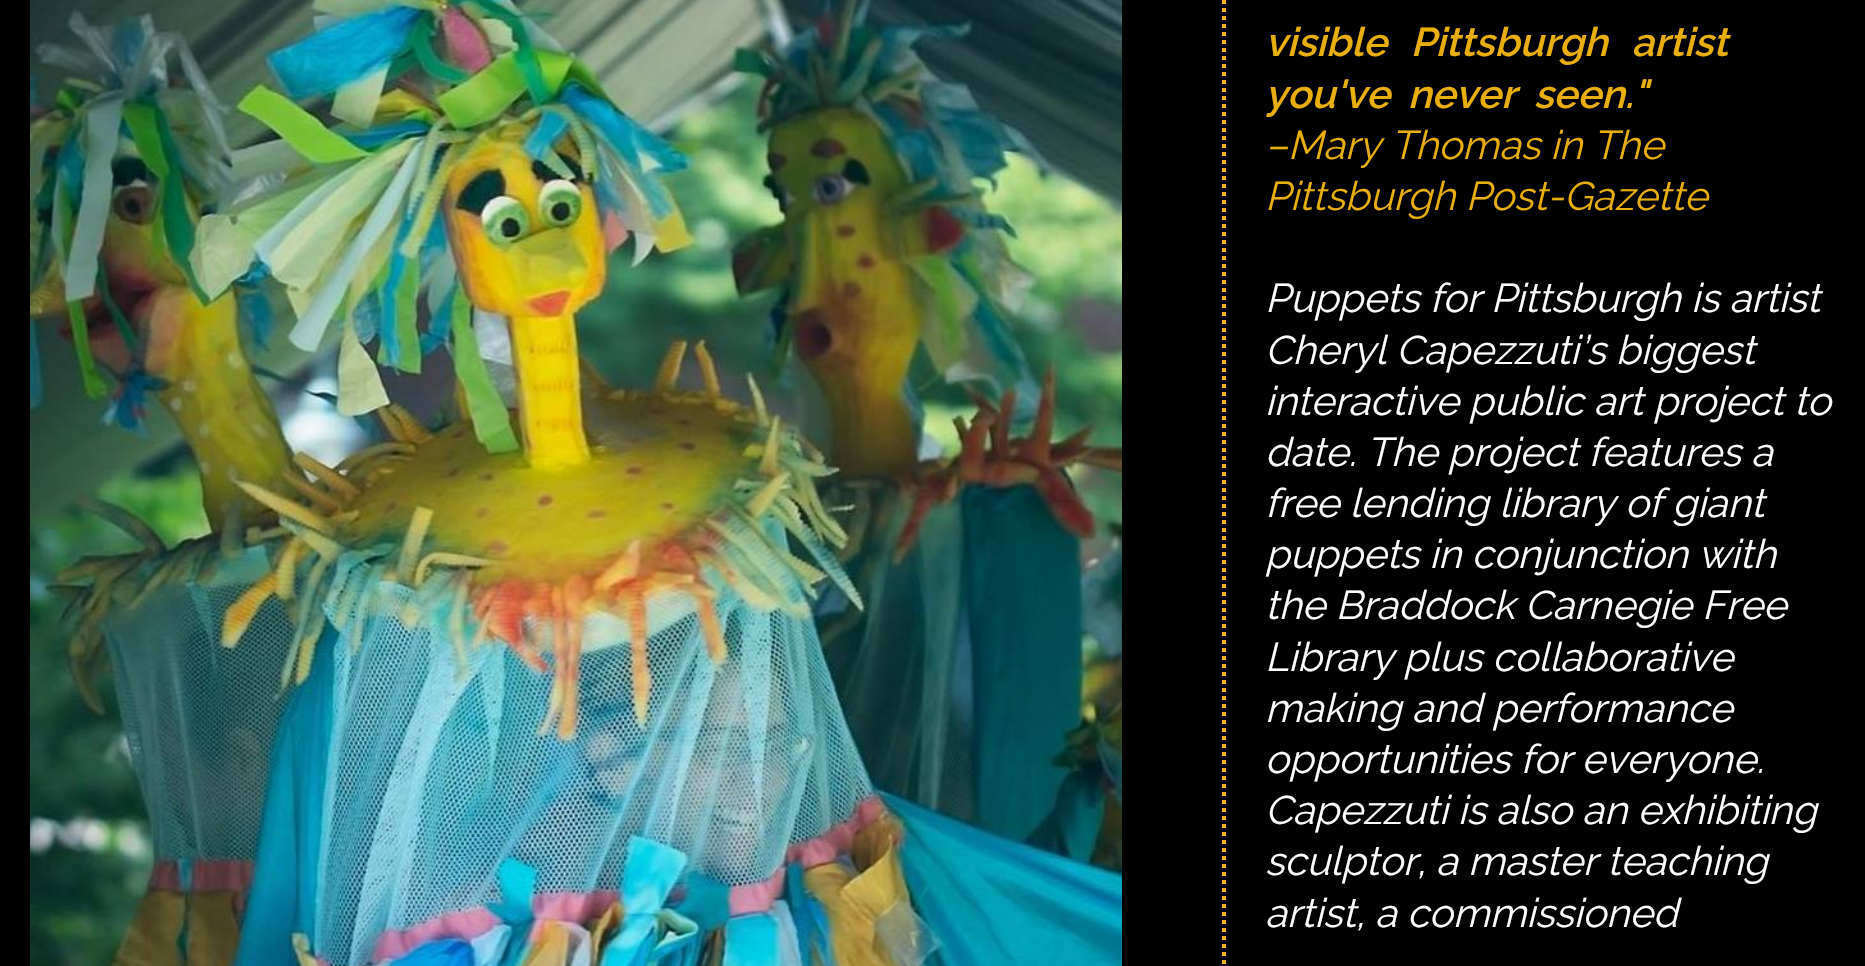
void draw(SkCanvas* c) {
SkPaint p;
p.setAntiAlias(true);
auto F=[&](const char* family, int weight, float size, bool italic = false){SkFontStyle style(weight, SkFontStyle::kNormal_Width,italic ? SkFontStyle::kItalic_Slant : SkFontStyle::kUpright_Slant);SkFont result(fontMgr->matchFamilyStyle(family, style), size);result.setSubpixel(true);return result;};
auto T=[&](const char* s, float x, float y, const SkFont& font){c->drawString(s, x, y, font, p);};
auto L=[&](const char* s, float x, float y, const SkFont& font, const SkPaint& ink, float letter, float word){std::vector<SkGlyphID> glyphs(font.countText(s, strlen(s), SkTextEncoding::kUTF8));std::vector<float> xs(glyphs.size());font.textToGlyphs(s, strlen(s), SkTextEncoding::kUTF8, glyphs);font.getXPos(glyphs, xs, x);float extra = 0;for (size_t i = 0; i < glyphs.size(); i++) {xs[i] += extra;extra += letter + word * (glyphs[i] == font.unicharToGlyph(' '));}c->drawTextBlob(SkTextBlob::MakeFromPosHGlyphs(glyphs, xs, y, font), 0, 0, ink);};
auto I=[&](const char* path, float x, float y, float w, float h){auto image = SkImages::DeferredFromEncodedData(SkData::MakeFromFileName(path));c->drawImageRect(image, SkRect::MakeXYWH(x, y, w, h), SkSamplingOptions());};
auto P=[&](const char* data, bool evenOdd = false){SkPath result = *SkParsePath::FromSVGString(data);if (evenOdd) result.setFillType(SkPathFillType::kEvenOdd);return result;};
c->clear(0xff000000);
I("1.png",30,0,1092,966);
p.setStroke(true);
p.setStrokeWidth(4);
p.setColor(0xffe8af0b);
p.setPathEffect(SkDashPathEffect::Make({{4,4}}, 0));
c->drawPath(P("M1224-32v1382"),p);
p.setPathEffect(nullptr);
auto f1 = F("Raleway",600,40,true);
p.setStroke(false);
L("visible Pittsburgh artist",1265,56,f1,p,0,14);
L("you've never seen.\"",1265,108,f1,p,0,8);
auto f2 = F("Raleway",400,40,true);
T("–Mary Thomas in The",1265,159,f2);
T("Pittsburgh Post-Gazette",1265,210,f2);
p.setColor(0xffffffff);
T("Puppets for Pittsburgh is artist",1265,312,f2);
T("Cheryl Capezzuti’s biggest",1265,364,f2);
T("interactive public art project to",1265,415,f2);
T("date. The project features a",1265,466,f2);
T("free lending library of giant",1265,517,f2);
T("puppets in conjunction with",1265,568,f2);
T("the Braddock Carnegie Free",1265,619,f2);
T("Library plus collaborative",1265,671,f2);
T("making and performance",1265,722,f2);
T("opportunities for everyone.",1265,773,f2);
T("Capezzuti is also an exhibiting",1265,824,f2);
T("sculptor, a master teaching",1265,875,f2);
T("artist, a commissioned",1265,927,f2);
}
